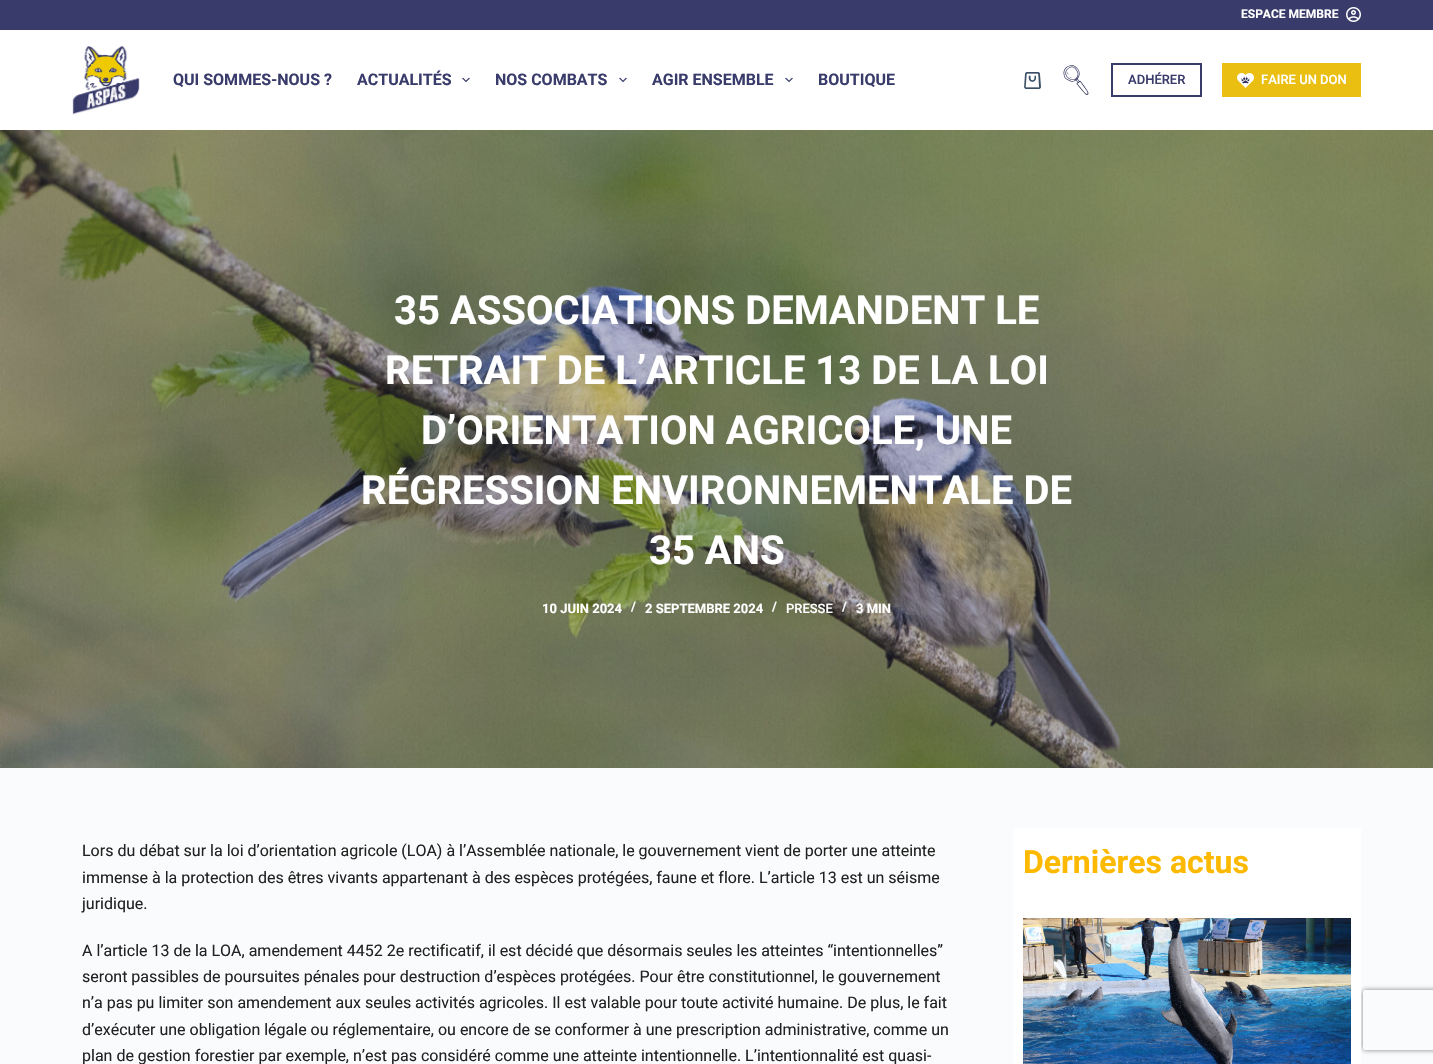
void draw(SkCanvas* c) {
SkPaint p;
p.setAntiAlias(true);
auto F=[&](const char* family, int weight, float size, bool italic = false){SkFontStyle style(weight, SkFontStyle::kNormal_Width,italic ? SkFontStyle::kItalic_Slant : SkFontStyle::kUpright_Slant);SkFont result(fontMgr->matchFamilyStyle(family, style), size);result.setSubpixel(true);return result;};
auto T=[&](const char* s, float x, float y, const SkFont& font){c->drawString(s, x, y, font, p);};
auto R=[&](float x, float y, float w, float h){c->drawRect(SkRect::MakeXYWH(x, y, w, h), p);};
auto I=[&](const char* path, float x, float y, float w, float h){auto image = SkImages::DeferredFromEncodedData(SkData::MakeFromFileName(path));c->drawImageRect(image, SkRect::MakeXYWH(x, y, w, h), SkSamplingOptions());};
auto P=[&](const char* data, bool evenOdd = false){SkPath result = *SkParsePath::FromSVGString(data);if (evenOdd) result.setFillType(SkPathFillType::kEvenOdd);return result;};
c->clear(0xfffafbfc);
p.setColor(0xff393c6b);
R(0,0,1433,30);
auto f1 = F("Roboto",700,12);
p.setColor(0xffffffff);
T("ESPACE MEMBRE",1241,18,f1);
I("1.png",1346,7,15,15);
R(0,30,1433,100);
I("2.png",72,46,68,69);
auto f2 = F("Roboto",700,16);
p.setColor(0xff393c6b);
T("QUI SOMMES-NOUS ?",173,85,f2);
T("ACTUALITÉS",357,85,f2);
I("3.png",462,77,8,6);
T("NOS COMBATS",495,85,f2);
I("3.png",619,77,8,6);
T("AGIR ENSEMBLE",652,85,f2);
I("3.png",785,77,8,6);
T("BOUTIQUE",818,85,f2);
I("4.png",1024,72,17,17);
I("5.png",1063,65,26,30);
p.setStroke(true);
p.setStrokeWidth(2);
c->drawRect(SkRect::MakeXYWH(1112,64,89,32),p);
auto f3 = F("Roboto",500,13);
p.setStroke(false);
T("ADHÉRER",1128,84,f3);
p.setColor(0xffebbf11);
R(1222,63,139,34);
I("6.png",1237,73,17,15);
p.setColor(0xffffffff);
T("FAIRE UN DON",1261,84,f3);
I("7.png",0,130,1433,638);
auto f4 = F("Roboto",700,40);
T("35 ASSOCIATIONS DEMANDENT LE",394,324,f4);
T("RETRAIT DE L’ARTICLE 13 DE LA LOI",385,384,f4);
T("D’ORIENTATION AGRICOLE, UNE",421,444,f4);
T("RÉGRESSION ENVIRONNEMENTALE DE",361,504,f4);
T("35 ANS",649,564,f4);
auto f5 = F("Roboto",700,13);
T("10 JUIN 2024",542,613,f5);
T("/",631,611,f5);
T("2 SEPTEMBRE 2024",645,613,f5);
T("/",772,611,f5);
T("PRESSE",786,613,f3);
T("/",842,611,f5);
T("3 MIN",856,613,f5);
auto f6 = F("Roboto",400,16);
p.setColor(0xff222222);
T("Lors du débat sur la loi d’orientation agricole (LOA) à l’Assemblée nationale, le gouvernement vient de porter une atteinte",82,856,f6);
T("immense à la protection des êtres vivants appartenant à des espèces protégées, faune et flore. L’article 13 est un séisme",82,883,f6);
T("juridique.",82,909,f6);
T("A l’article 13 de la LOA, amendement 4452 2e rectificatif, il est décidé que désormais seules les atteintes “intentionnelles”",82,956,f6);
T("seront passibles de poursuites pénales pour destruction d’espèces protégées. Pour être constitutionnel, le gouvernement",82,982,f6);
T("n’a pas pu limiter son amendement aux seules activités agricoles. Il est valable pour toute activité humaine. De plus, le fait",82,1008,f6);
T("d’exécuter une obligation légale ou réglementaire, ou encore de se conformer à une prescription administrative, comme un",82,1035,f6);
T("plan de gestion forestier par exemple, n’est pas considéré comme une atteinte intentionnelle. L’intentionnalité est quasi-",82,1061,f6);
c->save();
c->clipPath(P("M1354 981h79v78h-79zm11 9h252c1 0 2 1 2 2v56c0 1-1 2-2 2h-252c-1 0-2-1-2-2v-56c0-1 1-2 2-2z",true),true);
p.setColor(0xff808080);
p.setMaskFilter(SkMaskFilter::MakeBlur(kNormal_SkBlurStyle, 2.5));
c->drawRoundRect(SkRect::MakeXYWH(1363,990,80,60),2,2,p);
p.setMaskFilter(nullptr);
c->restore();
p.setColor(0xffffffff);
R(1013,828,348,236);
auto f7 = F("Roboto",700,32);
p.setColor(0xfffcb900);
T("Dernières actus",1023,873,f7);
I("8.png",1023,918,328,146);
}
